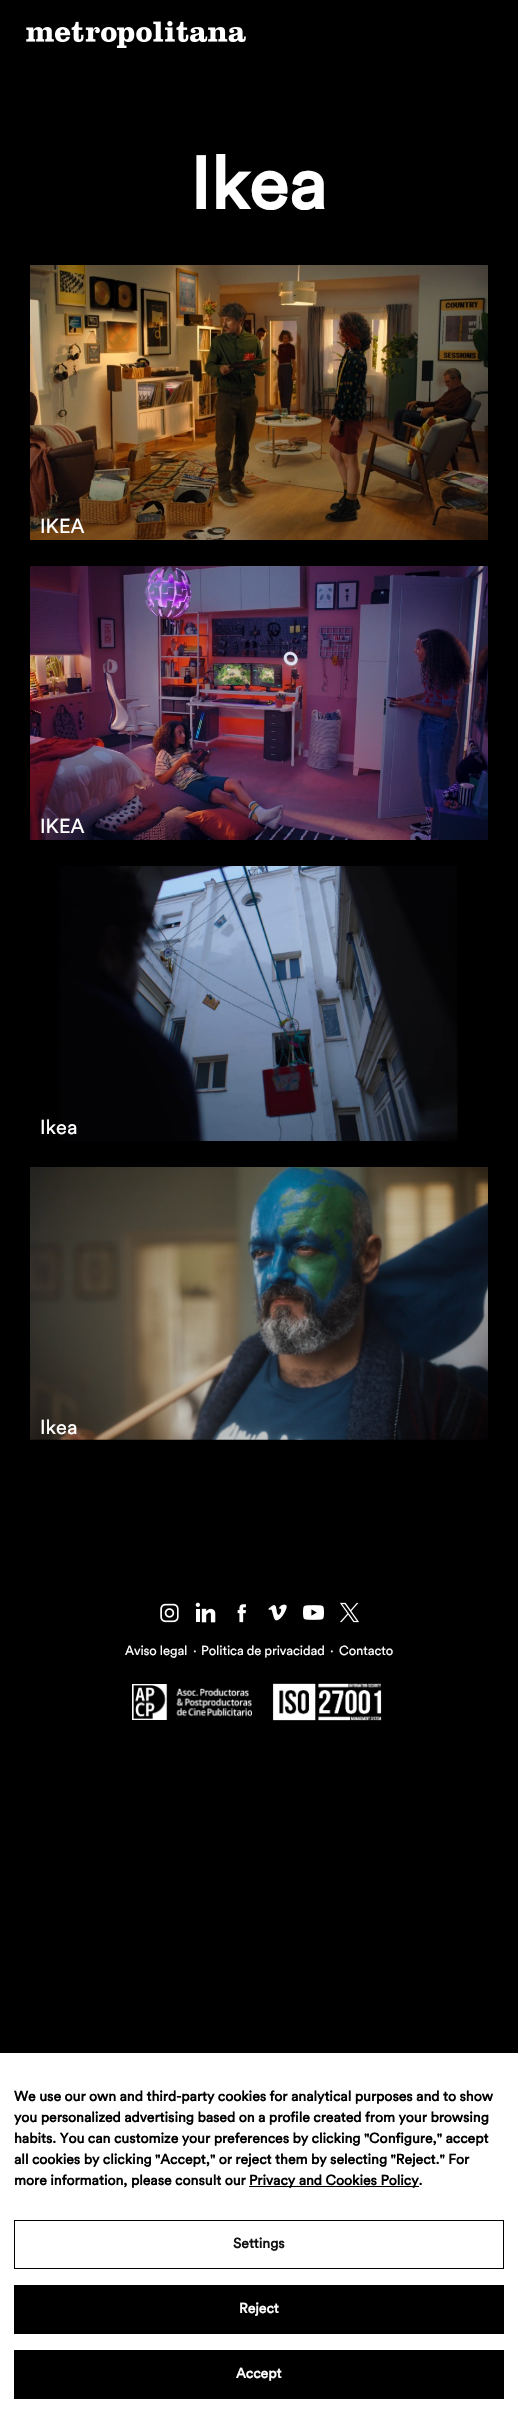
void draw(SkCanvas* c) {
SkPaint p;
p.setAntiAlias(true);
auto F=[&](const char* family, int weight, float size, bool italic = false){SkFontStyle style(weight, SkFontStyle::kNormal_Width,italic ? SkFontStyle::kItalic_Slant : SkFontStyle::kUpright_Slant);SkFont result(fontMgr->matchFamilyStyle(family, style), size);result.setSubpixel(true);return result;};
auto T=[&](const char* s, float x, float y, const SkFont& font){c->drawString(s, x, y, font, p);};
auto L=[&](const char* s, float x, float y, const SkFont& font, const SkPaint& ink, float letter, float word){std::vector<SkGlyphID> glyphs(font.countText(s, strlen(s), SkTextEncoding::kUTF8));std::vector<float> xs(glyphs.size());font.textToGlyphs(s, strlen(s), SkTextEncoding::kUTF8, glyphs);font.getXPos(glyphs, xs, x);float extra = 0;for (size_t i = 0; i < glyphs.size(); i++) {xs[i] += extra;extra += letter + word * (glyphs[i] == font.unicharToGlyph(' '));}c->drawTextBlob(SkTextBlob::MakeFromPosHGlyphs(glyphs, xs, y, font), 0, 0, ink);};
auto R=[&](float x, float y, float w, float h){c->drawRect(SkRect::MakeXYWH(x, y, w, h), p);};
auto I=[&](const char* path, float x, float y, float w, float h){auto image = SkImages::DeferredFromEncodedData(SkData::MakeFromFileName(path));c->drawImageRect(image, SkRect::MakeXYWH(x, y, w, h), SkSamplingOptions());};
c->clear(0xff000000);
I("1.png",26,21,220,27);
auto f1 = F("Circular",700,73);
p.setColor(0xffffffff);
T("Ikea",190,209,f1);
I("2.png",30,265,458,275);
auto f2 = F("Circular",400,20);
T("IKEA",40,533,f2);
I("3.png",30,566,458,274);
T("IKEA",40,833,f2);
I("4.png",59,866,399,275);
T("Ikea",40,1134,f2);
I("5.png",30,1167,458,273);
T("Ikea",40,1434,f2);
I("6.png",160,1603,19,20);
I("7.png",195,1602,21,21);
I("8.png",237,1604,9,19);
I("9.png",268,1604,19,17);
I("10.png",303,1605,21,15);
I("11.png",340,1602,19,21);
auto f3 = F("Circular",400,13);
L("Aviso legal",125,1655,f3,p,-.1,0);
L("·",193,1655,f3,p,-.1,0);
L("Politica de privacidad",201,1655,f3,p,-.1,0);
L("·",330,1655,f3,p,-.1,0);
L("Contacto",339,1655,f3,p,-.1,0);
I("12.png",132,1684,120,36);
I("13.png",272,1683,110,38);
R(0,2053,518,360);
auto f4 = F("Circular",700,14);
p.setColor(0xff000000);
T("We use our own and third-party cookies for analytical purposes and to show",14,2101,f4);
T("you personalized advertising based on a profile created from your browsing",14,2122,f4);
T("habits. You can customize your preferences by clicking \"Configure,\" accept",14,2143,f4);
T("all cookies by clicking \"Accept,\" or reject them by selecting \"Reject.\" For",14,2164,f4);
T("more information, please consult our",14,2185,f4);
R(249,2186,170,1);
T("Privacy and Cookies Policy.",249,2185,f4);
p.setStroke(true);
p.setStrokeWidth(1);
c->drawRect(SkRect::MakeXYWH(14.5,2220.5,489,48),p);
p.setStroke(false);
p.setColor(0xff111111);
T("Settings",233,2248,f4);
p.setColor(0xff000000);
R(14,2285,490,49);
p.setColor(0xffffffff);
T("Reject",239,2313,f4);
p.setColor(0xff000000);
R(14,2350,490,49);
p.setColor(0xffffffff);
T("Accept",236,2378,f4);
}
